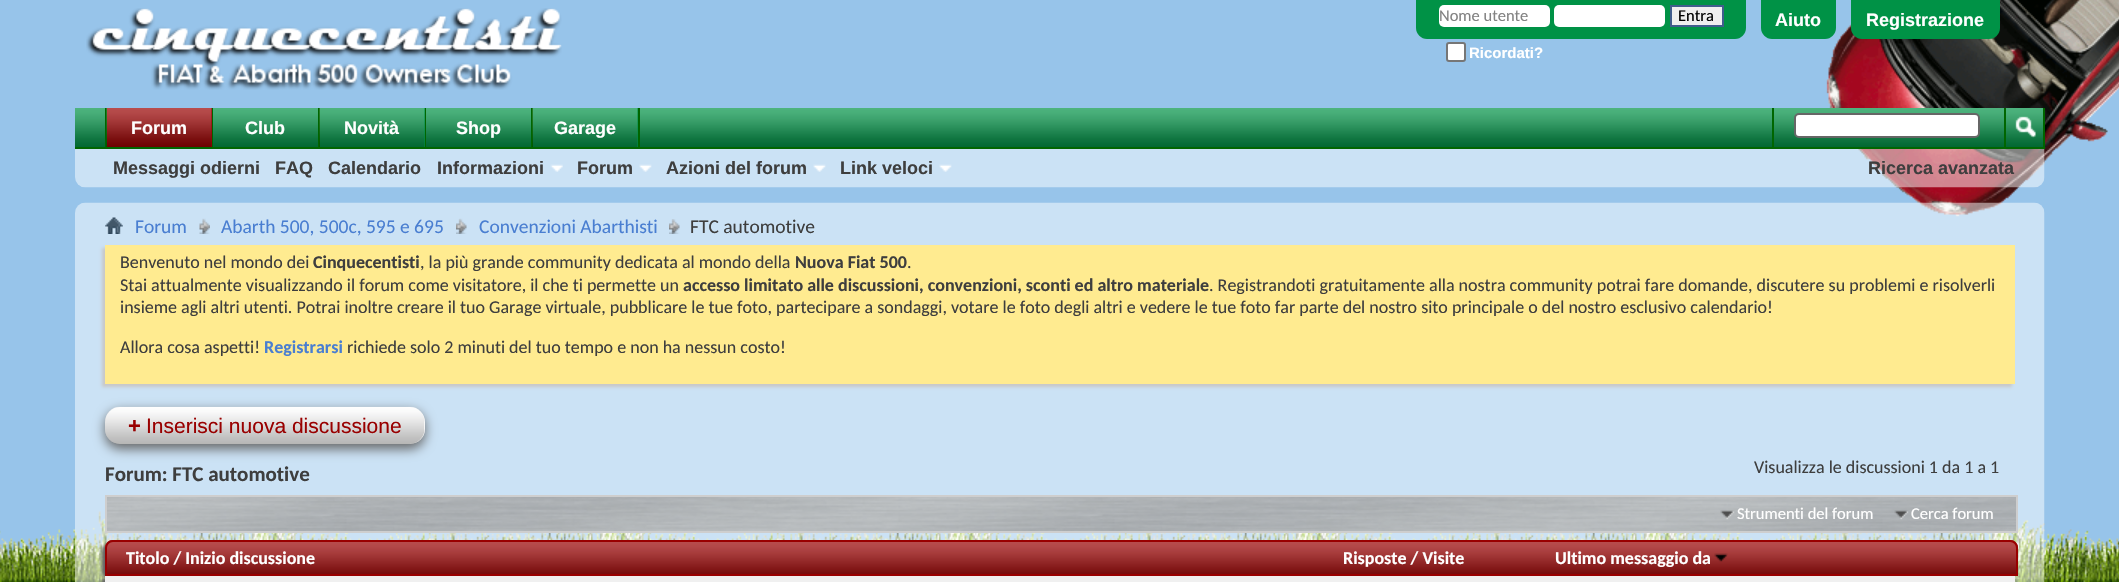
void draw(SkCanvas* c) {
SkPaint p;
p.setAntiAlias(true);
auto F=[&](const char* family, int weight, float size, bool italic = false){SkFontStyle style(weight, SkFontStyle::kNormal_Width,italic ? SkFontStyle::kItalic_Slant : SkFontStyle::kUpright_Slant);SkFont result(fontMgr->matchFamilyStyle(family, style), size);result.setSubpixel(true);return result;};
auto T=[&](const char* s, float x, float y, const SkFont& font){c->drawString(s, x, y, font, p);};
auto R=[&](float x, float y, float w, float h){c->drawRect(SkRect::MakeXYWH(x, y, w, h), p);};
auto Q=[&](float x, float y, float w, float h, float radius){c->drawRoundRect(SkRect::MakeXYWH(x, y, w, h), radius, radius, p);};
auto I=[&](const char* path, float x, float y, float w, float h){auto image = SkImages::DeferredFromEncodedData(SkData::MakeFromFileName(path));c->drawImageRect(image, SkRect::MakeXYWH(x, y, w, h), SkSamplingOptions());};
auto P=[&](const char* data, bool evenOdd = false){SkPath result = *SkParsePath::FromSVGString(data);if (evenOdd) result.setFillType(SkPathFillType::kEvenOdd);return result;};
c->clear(0xff97c4ea);
I("1.png",1826,0,293,217);
I("2.png",86,8,476,82);
p.setColor(0xff009246);
c->drawPath(P("M1416 0h330v28c0 6-5 11-11 11h-308c-6 0-11-5-11-11z"),p);
p.setColor(0xffffffff);
Q(1439,5,111,22,5);
auto f1 = F("Carlito",400,16.5);
p.setColor(0xff828282);
T("Nome utente",1439,21,f1);
p.setColor(0xffffffff);
Q(1554,5,111,22,5);
p.setColor(0xffefefef);
c->drawRect(SkRect::MakeXYWH(1671,6,52,20),p);
p.setStroke(true);
p.setStrokeWidth(2);
p.setColor(0xff415d8d);
c->drawRect(SkRect::MakeXYWH(1671,6,52,20),p);
p.setStroke(false);
p.setColor(0xff000000);
T("Entra",1678,21,f1);
p.setColor(0xffffffff);
c->drawRoundRect(SkRect::MakeXYWH(1447,43,18,18),2,2,p);
p.setStroke(true);
p.setColor(0xff767676);
c->drawRoundRect(SkRect::MakeXYWH(1447,43,18,18),2,2,p);
auto f2 = F("Liberation Sans",700,15);
p.setStroke(false);
p.setColor(0xffffffff);
T("Ricordati?",1469,58,f2);
p.setColor(0xff009246);
c->drawPath(P("M1761 0h75v28c0 6-5 11-11 11h-53c-6 0-11-5-11-11z"),p);
auto f3 = F("Liberation Sans",700,18);
p.setColor(0xffffffff);
T("Aiuto",1775,26,f3);
p.setColor(0xff009246);
c->drawPath(P("M1851 0h149v28c0 6-5 11-11 11h-127c-6 0-11-5-11-11z"),p);
p.setColor(0xffffffff);
T("Registrazione",1866,26,f3);
I("3.png",75,149,1970,39);
p.setColor(0xff009246);
R(75,108,1968,39);
I("4.png",75,108,1968,39);
p.setColor(0xff006600);
R(318,108,2,39);
p.setColor(0xff009246);
R(213,108,105,39);
I("5.png",213,108,105,39);
p.setColor(0xffffffff);
T("Club",245,134,f3);
p.setColor(0xff006600);
R(425,108,1,39);
p.setColor(0xff009246);
R(320,108,105,39);
I("6.png",319,108,106,39);
p.setColor(0xffffffff);
T("Novità",344,134,f3);
p.setColor(0xff006600);
R(531,108,2,39);
p.setColor(0xff009246);
R(426,108,105,39);
I("5.png",426,108,105,39);
p.setColor(0xffffffff);
T("Shop",456,134,f3);
p.setColor(0xff006600);
R(212,108,1,39);
R(105,108,2,39);
p.setColor(0xff990000);
R(107,108,105,39);
I("7.png",106,108,106,39);
p.setColor(0xffffffff);
T("Forum",131,134,f3);
p.setColor(0xff006600);
R(75,147,1970,2);
p.setColor(0xff3e3e3e);
T("Messaggi odierni",113,174,f3);
T("FAQ",275,174,f3);
T("Calendario",328,174,f3);
T("Informazioni",437,174,f3);
I("8.png",550,164,13,8);
T("Forum",577,174,f3);
I("9.png",639,164,13,8);
T("Azioni del forum",666,174,f3);
I("9.png",813,164,13,8);
T("Link veloci",840,174,f3);
I("9.png",939,164,13,8);
p.setColor(0xff006600);
R(638,108,2,39);
p.setColor(0xff009246);
R(533,108,105,39);
I("6.png",532,108,106,39);
p.setColor(0xffffffff);
T("Garage",554,134,f3);
p.setColor(0xff006600);
R(1772,108,2,39);
p.setColor(0xffffffff);
c->drawRoundRect(SkRect::MakeXYWH(1795,114,184,23),4,4,p);
p.setStroke(true);
p.setColor(0xff666666);
c->drawRoundRect(SkRect::MakeXYWH(1795,114,184,23),4,4,p);
p.setStroke(false);
p.setColor(0xff006600);
R(2043,108,2,39);
R(2004,108,2,39);
I("10.png",2015,116,21,22);
p.setColor(0xff3e3e3e);
T("Ricerca avanzata",1868,174,f3);
I("22.png",0,511,2119,71);
I("11.png",75,202,1970,380);
I("12.png",105,217,18,17);
I("13.png",199,218,11,16);
auto f4 = F("Carlito",400,19.5);
p.setColor(0xff497ed1);
T("Forum",135,233,f4);
I("14.png",456,218,11,16);
T("Abarth 500, 500c, 595 e 695",221,233,f4);
I("15.png",669,219,11,15);
T("Convenzioni Abarthisti",479,233,f4);
p.setColor(0xff3e3e3e);
T("FTC automotive",690,233,f4);
p.setColor(0xffc8c8c8);
p.setMaskFilter(SkMaskFilter::MakeBlur(kNormal_SkBlurStyle, 1.5));
c->drawRect(SkRect::MakeXYWH(102,248,1910,139),p);
p.setMaskFilter(nullptr);
p.setColor(0xffffeb90);
R(105,245,1910,139);
auto f5 = F("Carlito",400,18);
p.setColor(0xff3e3e3e);
T("Benvenuto nel mondo dei",120,268,f5);
auto f6 = F("Carlito",700,18);
T("Cinquecentisti",313,268,f6);
T(", la più grande community dedicata al mondo della",420,268,f5);
T("Nuova Fiat 500",795,268,f6);
T(".",907,268,f5);
T("Stai attualmente visualizzando il forum come visitatore, il che ti permette un",120,291,f5);
T("accesso limitato alle discussioni, convenzioni, sconti ed altro materiale",683,291,f6);
T(". Registrandoti gratuitamente alla nostra community potrai fare domande, discutere su problemi e risolverli",1209,291,f5);
T("insieme agli altri utenti. Potrai inoltre creare il tuo Garage virtuale, pubblicare le tue foto, partecipare a sondaggi, votare le foto degli altri e vedere le tue foto far parte del nostro sito principale o del nostro esclusivo calendario!",120,313,f5);
T("Allora cosa aspetti!",120,353,f5);
p.setColor(0xff497ed1);
T("Registrarsi",264,353,f6);
p.setColor(0xff3e3e3e);
T("richiede solo 2 minuti del tuo tempo e non ha nessun costo!",347,353,f5);
p.setColor(0xff666666);
p.setMaskFilter(SkMaskFilter::MakeBlur(kNormal_SkBlurStyle, 6));
c->drawRoundRect(SkRect::MakeXYWH(105,411,320,38),15,15,p);
p.setMaskFilter(nullptr);
p.setColor(0xffffffff);
Q(105,407,320,37,15);
I("16.png",105,406,320,38);
auto f7 = F("Liberation Sans",700,22);
p.setColor(0xff990000);
T("+",128,433,f7);
auto f8 = F("Liberation Sans",400,21);
T("Inserisci nuova discussione",146,433,f8);
p.setColor(0xff3e3e3e);
T("Visualizza le discussioni 1 da 1 a 1",1754,473,f5);
auto f9 = F("Carlito",700,21);
T("Forum: FTC automotive",105,481,f9);
I("17.png",107,497,1909,34);
p.setStroke(true);
p.setColor(0xffcecece);
c->drawRect(SkRect::MakeXYWH(106,496,1911,36),p);
I("18.png",1720,510,15,10);
p.setStroke(false);
p.setColor(0xffffffff);
T("Strumenti del forum",1737,519,f1);
I("19.png",1894,510,15,10);
T("Cerca forum",1911,519,f1);
p.setColor(0xff666666);
p.setMaskFilter(SkMaskFilter::MakeBlur(kNormal_SkBlurStyle, 1.5));
c->drawRoundRect(SkRect::MakeXYWH(102,543,1913,36),8,8,p);
p.setMaskFilter(nullptr);
p.setColor(0xff990000);
c->drawPath(P("M113 540h1897c4.5 0 8 3.5 8 8v28h-1913v-28c0-4.5 3.5-8 8-8z"),p);
I("20.png",105,541,1913,33);
p.setStroke(true);
c->drawPath(P("M113 541h1897c4 0 7 3 7 7v27h-1911v-27c0-4 3-7 7-7z"),p);
p.setStroke(false);
p.setColor(0xffffffff);
T("Titolo / Inizio discussione",126,564,f6);
T("Risposte / Visite",1343,564,f6);
T("Ultimo messaggio da",1555,564,f6);
I("21.png",1714,553,14,9);
p.setColor(0xff666666);
p.setMaskFilter(SkMaskFilter::MakeBlur(kNormal_SkBlurStyle, 1.5));
c->drawRect(SkRect::MakeXYWH(102,579,1910,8),p);
p.setMaskFilter(nullptr);
p.setColor(0xfff0f0f0);
R(105,576,1910,6);
}
